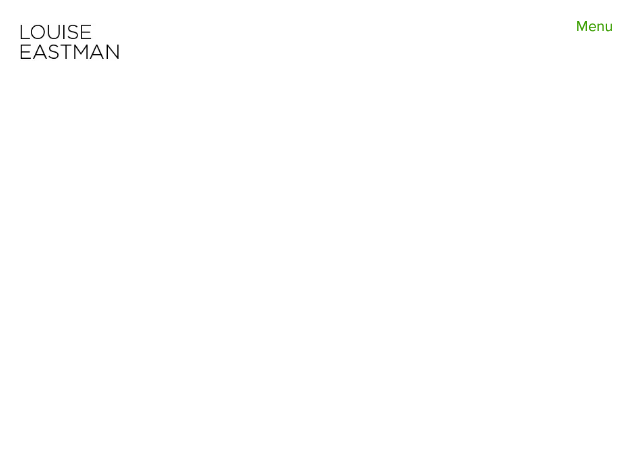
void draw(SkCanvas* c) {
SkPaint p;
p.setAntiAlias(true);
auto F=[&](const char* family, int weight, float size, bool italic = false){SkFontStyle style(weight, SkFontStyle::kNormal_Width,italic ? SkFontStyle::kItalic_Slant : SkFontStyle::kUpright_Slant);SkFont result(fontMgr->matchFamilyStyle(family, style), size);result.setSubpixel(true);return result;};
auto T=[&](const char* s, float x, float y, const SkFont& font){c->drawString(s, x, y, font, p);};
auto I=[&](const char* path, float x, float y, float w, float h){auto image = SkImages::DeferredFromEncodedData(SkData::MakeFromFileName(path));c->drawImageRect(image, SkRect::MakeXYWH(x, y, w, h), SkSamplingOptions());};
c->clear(0xffffffff);
I("1.png",20,23,99,38);
auto f1 = F("Proxima Nova",400,15);
p.setColor(0xff3a9e00);
T("Menu",576,31,f1);
}
